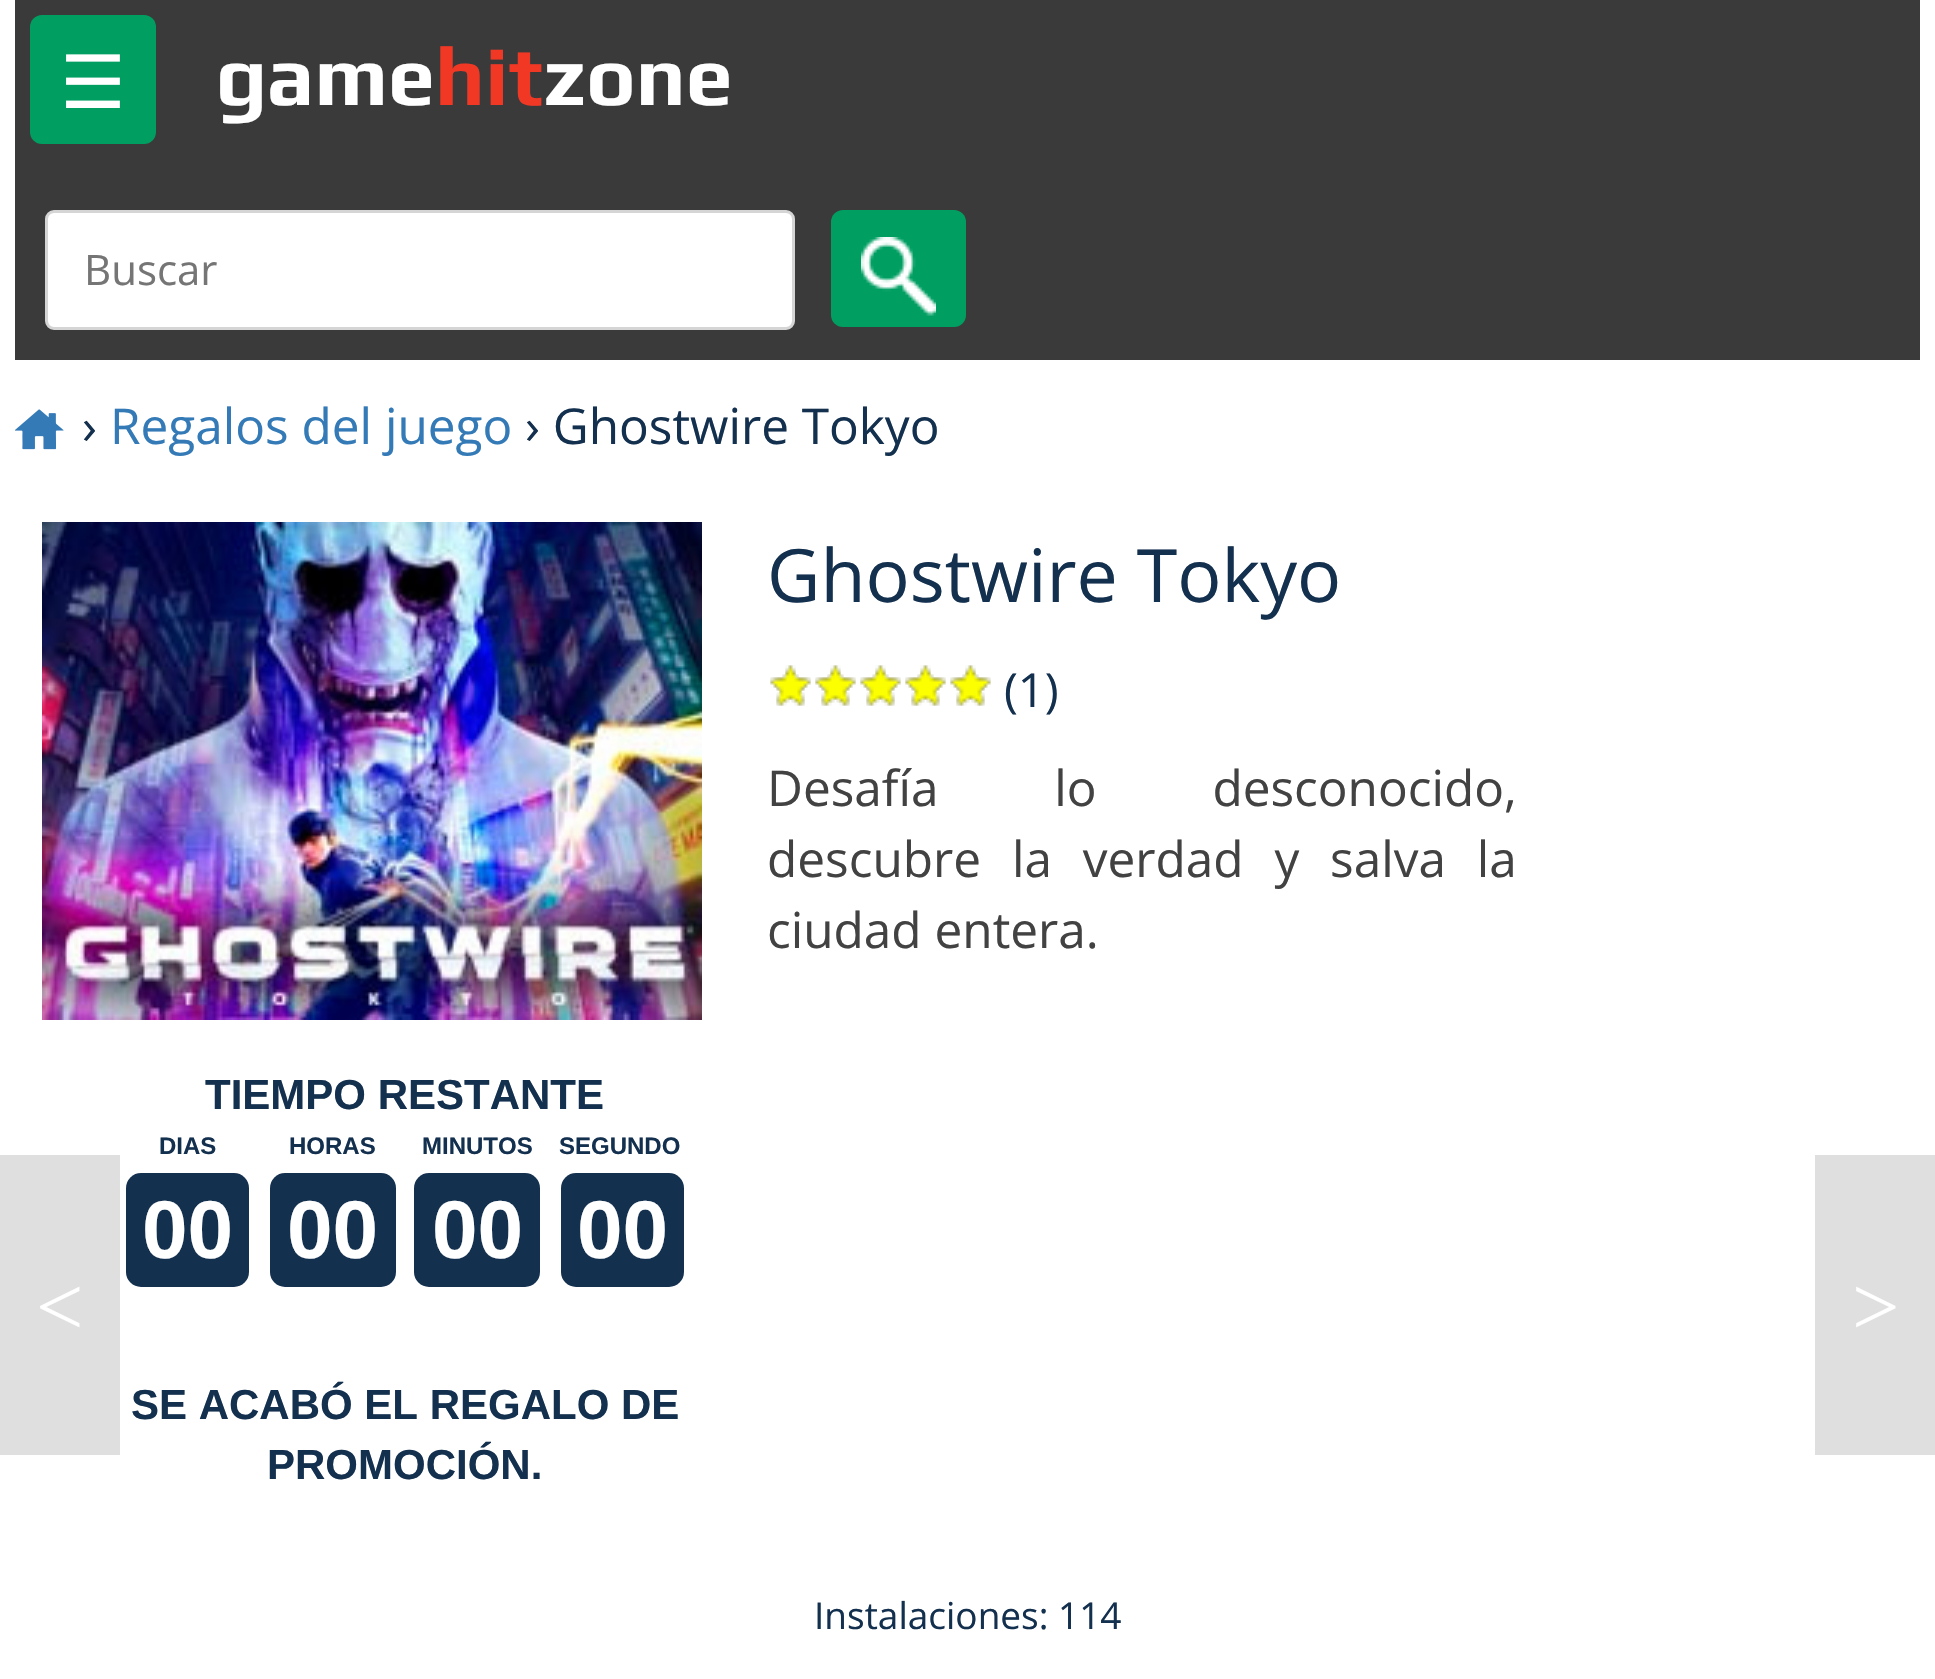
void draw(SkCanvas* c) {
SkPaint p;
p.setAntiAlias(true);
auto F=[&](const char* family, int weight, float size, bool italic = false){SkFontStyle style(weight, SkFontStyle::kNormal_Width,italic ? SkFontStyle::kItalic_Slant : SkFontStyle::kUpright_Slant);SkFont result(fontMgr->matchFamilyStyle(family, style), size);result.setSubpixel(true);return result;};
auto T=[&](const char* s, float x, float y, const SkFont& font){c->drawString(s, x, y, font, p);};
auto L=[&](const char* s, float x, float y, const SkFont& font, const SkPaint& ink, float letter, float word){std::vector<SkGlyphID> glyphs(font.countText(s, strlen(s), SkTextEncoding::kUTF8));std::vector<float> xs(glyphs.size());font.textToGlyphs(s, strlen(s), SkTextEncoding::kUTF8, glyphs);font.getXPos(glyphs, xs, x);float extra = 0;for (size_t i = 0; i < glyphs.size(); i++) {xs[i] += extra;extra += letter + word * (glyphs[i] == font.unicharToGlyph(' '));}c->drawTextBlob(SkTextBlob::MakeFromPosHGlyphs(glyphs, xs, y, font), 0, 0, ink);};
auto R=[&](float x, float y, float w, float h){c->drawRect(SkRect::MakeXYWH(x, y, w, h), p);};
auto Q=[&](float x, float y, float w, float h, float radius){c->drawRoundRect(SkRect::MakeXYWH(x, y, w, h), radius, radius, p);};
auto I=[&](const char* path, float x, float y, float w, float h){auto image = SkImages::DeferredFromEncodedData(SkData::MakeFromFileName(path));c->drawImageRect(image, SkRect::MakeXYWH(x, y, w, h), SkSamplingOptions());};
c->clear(0xffffffff);
p.setColor(0xff3a3a3a);
R(15,0,1905,360);
p.setColor(0xff009e61);
Q(30,15,126,129,12);
auto f1 = F("DejaVu Sans",400,73.5);
p.setColor(0xffffffff);
T("☰",60,108,f1);
auto f2 = F("Play",700,84);
T("game",216,105,f2);
p.setColor(0xfff13825);
T("hit",435,105,f2);
p.setColor(0xffffffff);
T("zone",543,105,f2);
c->drawRoundRect(SkRect::MakeXYWH(46.5,211.5,747,117),7.5,7.5,p);
p.setStroke(true);
p.setStrokeWidth(3);
p.setColor(0xffd5d5d5);
c->drawRoundRect(SkRect::MakeXYWH(46.5,211.5,747,117),7.5,7.5,p);
auto f3 = F("Open Sans",400,42);
p.setStroke(false);
p.setColor(0xff757575);
T("Buscar",84,285,f3);
p.setColor(0xff009e61);
Q(831,210,135,117,12);
I("1.png",861,237,75,79);
I("2.png",15,409,49,41);
auto f4 = F("Open Sans",400,49.5);
p.setColor(0xff14304f);
T("›",82,444,f4);
p.setColor(0xff337ab7);
T("Regalos del juego",110,444,f4);
p.setColor(0xff14304f);
T("› Ghostwire Tokyo",525,444,f4);
I("3.png",42,522,660,498);
auto f5 = F("Open Sans",400,73.5);
T("Ghostwire Tokyo",767,602,f5);
I("4.png",770,665,221,41);
I("5.png",770,665,221,41);
auto f6 = F("Open Sans",400,47);
T("(1)",1004,707,f6);
p.setColor(0xff424242);
L("Desafía lo desconocido,",767,806,f4,p,0,103);
L("descubre la verdad y salva la",767,877,f4,p,0,18);
T("ciudad entera.",767,948,f4);
auto f7 = F("Liberation Sans",700,42);
p.setColor(0xff14304f);
T("TIEMPO RESTANTE",205,1109,f7);
auto f8 = F("Liberation Sans",700,24);
T("DIAS",159,1154,f8);
Q(126,1173,123,114,15);
auto f9 = F("Liberation Sans",700,82);
p.setColor(0xffffffff);
T("00",142,1258,f9);
p.setColor(0xff14304f);
T("HORAS",289,1154,f8);
Q(270,1173,126,114,15);
p.setColor(0xffffffff);
T("00",287,1258,f9);
p.setColor(0xff14304f);
T("MINUTOS",422,1154,f8);
Q(414,1173,126,114,15);
p.setColor(0xffffffff);
T("00",432,1258,f9);
p.setColor(0xff14304f);
T("SEGUNDO",559,1154,f8);
Q(561,1173,123,114,15);
p.setColor(0xffffffff);
T("00",577,1258,f9);
p.setColor(0xff14304f);
T("SE ACABÓ EL REGALO DE",131,1419,f7);
T("PROMOCIÓN.",267,1479,f7);
p.setColor(0xffdfdfdf);
R(0,1155,120,300);
auto f10 = F("Liberation Serif",400,84);
p.setColor(0xffffffff);
T("<",36,1335,f10);
p.setColor(0xffdfdfdf);
R(1815,1155,120,300);
p.setColor(0xffffffff);
T(">",1852,1335,f10);
auto f11 = F("Open Sans",400,37);
p.setColor(0xff14304f);
T("Instalaciones: 114",814,1629,f11);
}
